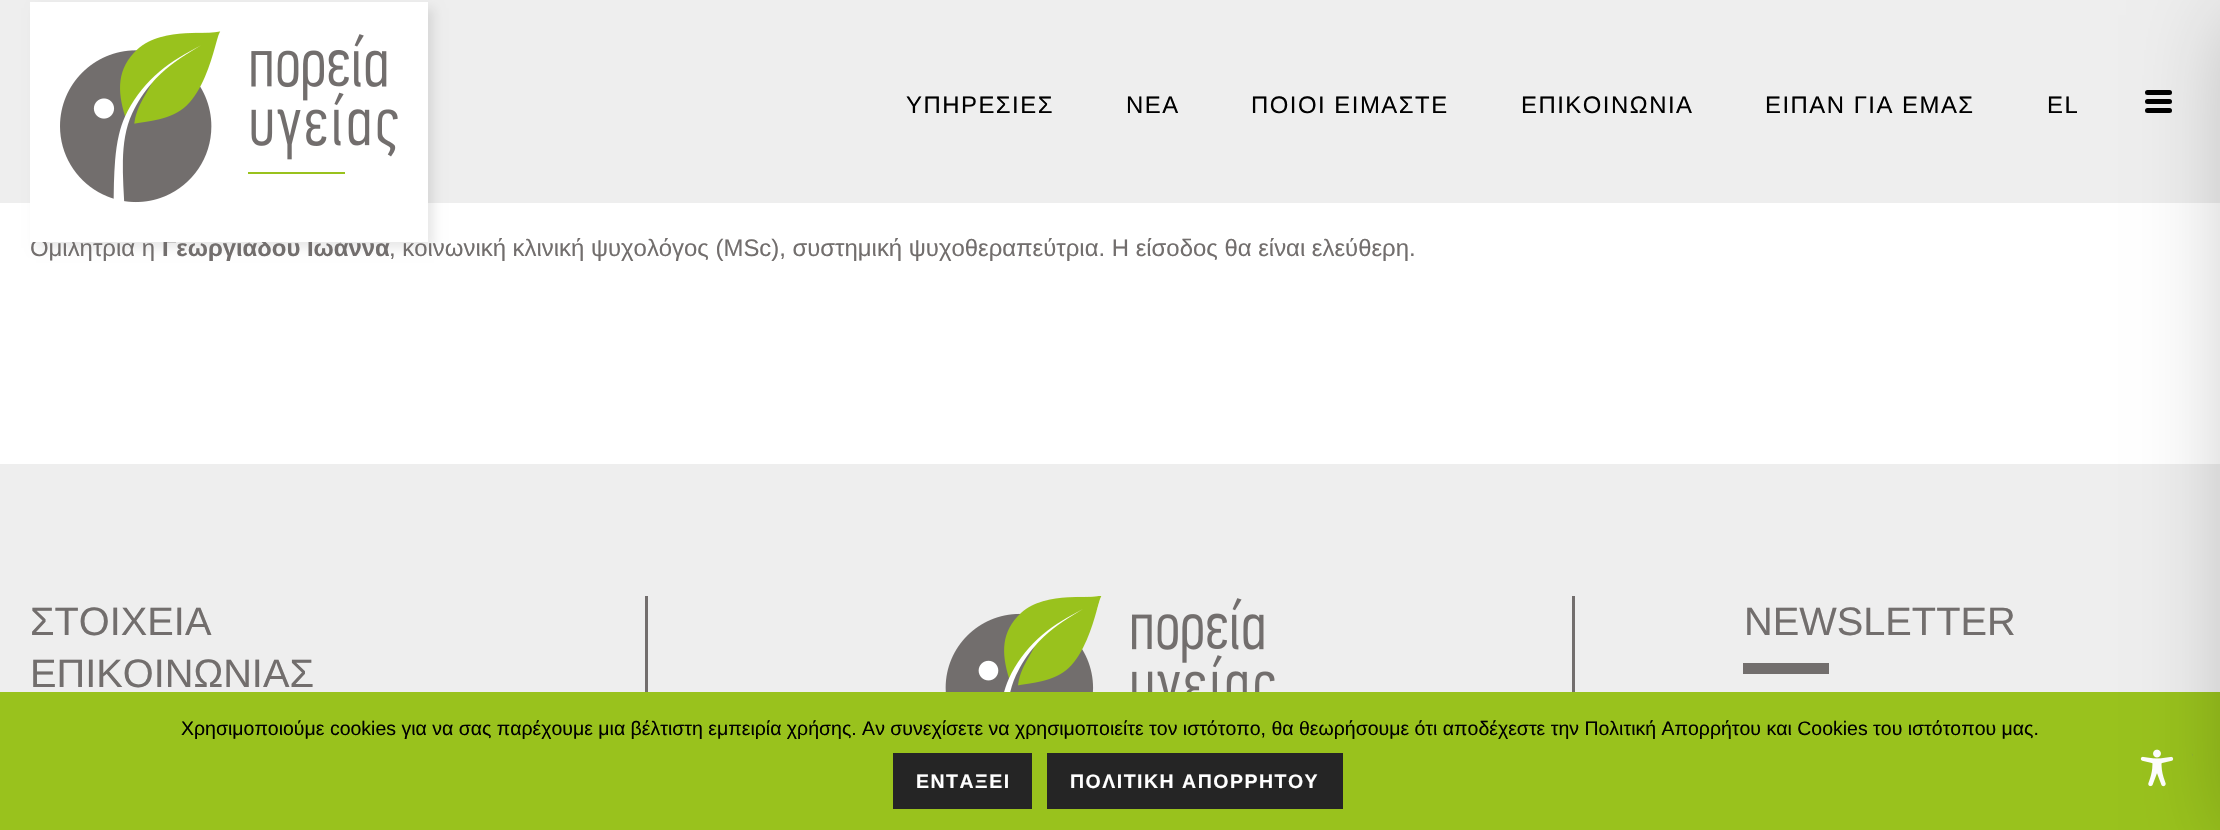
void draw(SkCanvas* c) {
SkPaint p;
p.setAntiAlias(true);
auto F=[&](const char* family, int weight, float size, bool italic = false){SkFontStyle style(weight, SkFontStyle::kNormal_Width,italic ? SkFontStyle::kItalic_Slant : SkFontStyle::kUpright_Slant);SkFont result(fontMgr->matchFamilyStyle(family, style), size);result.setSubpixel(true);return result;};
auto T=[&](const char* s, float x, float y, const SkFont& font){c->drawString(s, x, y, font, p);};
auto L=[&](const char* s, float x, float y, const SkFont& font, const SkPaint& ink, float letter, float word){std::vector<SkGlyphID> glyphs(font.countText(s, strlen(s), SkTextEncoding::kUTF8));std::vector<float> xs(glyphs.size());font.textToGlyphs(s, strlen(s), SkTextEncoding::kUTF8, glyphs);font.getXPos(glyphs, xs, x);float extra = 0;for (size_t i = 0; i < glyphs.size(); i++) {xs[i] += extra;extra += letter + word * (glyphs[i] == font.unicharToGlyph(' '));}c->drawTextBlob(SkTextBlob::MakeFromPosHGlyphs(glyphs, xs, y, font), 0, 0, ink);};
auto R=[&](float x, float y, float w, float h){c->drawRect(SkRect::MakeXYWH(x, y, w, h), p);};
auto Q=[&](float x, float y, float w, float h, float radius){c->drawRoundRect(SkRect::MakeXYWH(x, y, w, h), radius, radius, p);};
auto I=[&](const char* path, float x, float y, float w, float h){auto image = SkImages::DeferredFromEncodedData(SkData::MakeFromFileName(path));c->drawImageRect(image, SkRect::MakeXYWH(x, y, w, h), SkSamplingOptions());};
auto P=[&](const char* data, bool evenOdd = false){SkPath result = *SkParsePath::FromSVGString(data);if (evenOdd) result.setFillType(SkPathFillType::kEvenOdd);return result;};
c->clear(0xffffffff);
p.setColor(0xffeeeeee);
R(0,0,2220,203);
p.setColor(0x17000000);
p.setMaskFilter(SkMaskFilter::MakeBlur(kNormal_SkBlurStyle, 5));
c->drawRect(SkRect::MakeXYWH(36,8,398,240),p);
p.setMaskFilter(nullptr);
auto f1 = F("Liberation Sans",400,23.9);
p.setColor(0xff726e6d);
T("Ομιλήτρια η",30,256,f1);
auto f2 = F("Liberation Sans",700,23.9);
T("Γεωργιάδου Ιωάννα",162,256,f2);
T(", κοινωνική κλινική ψυχολόγος (MSc), συστημική ψυχοθεραπεύτρια. Η είσοδος θα είναι ελεύθερη.",389,256,f1);
p.setColor(0xffffffff);
R(30,2,398,240);
I("1.png",60,31,338,172);
p.setColor(0xff000000);
L("ΥΠΗΡΕΣΙΕΣ",906,113,f1,p,1.5,0);
L("ΝΕΑ",1126,113,f1,p,1.5,0);
L("ΠΟΙΟΙ ΕΙΜΑΣΤΕ",1251,113,f1,p,1.5,0);
L("ΕΠΙΚΟΙΝΩΝΙΑ",1521,113,f1,p,1.5,0);
L("ΕΙΠΑΝ ΓΙΑ ΕΜΑΣ",1765,113,f1,p,1.5,0);
L("EL",2047,113,f1,p,1.5,0);
Q(2145,90,27,5,2.5);
Q(2145,99,27,5,2.5);
Q(2145,108,27,5,2.5);
p.setColor(0xffeeeeee);
R(0,464,2220,228);
auto f3 = F("Liberation Sans",400,39.75);
p.setColor(0xff726e6d);
T("ΣΤΟΙΧΕΙΑ",30,635,f3);
T("ΕΠΙΚΟΙΝΩΝΙΑΣ",30,687,f3);
R(645,596,3,96);
I("2.png",945,596,330,96);
R(1572,596,3,96);
T("NEWSLETTER",1744,635,f3);
R(1743,663,86,11);
p.setColor(0xff99c21d);
R(0,692,2220,138);
p.setColor(0xff8da14f);
c->drawPath(P("M2191 753l2 2l-16 16l-2-2z"),p);
p.setColor(0xff99c21d);
c->drawCircle(2157.5,768.5,37.5,p);
I("3.png",2140,749,34,38);
p.setColor(0x33000000);
p.setMaskFilter(SkMaskFilter::MakeBlur(kNormal_SkBlurStyle, 45));
c->drawRect(SkRect::MakeXYWH(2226,15,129,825),p);
p.setMaskFilter(nullptr);
auto f4 = F("Liberation Sans",400,19.5);
p.setColor(0xff000000);
T("Χρησιμοποιούμε cookies για να σας παρέχουμε μια βέλτιστη εμπειρία χρήσης. Αν συνεχίσετε να χρησιμοποιείτε τον ιστότοπο, θα θεωρήσουμε ότι αποδέχεστε την Πολιτική Απορρήτου και Cookies του ιστότοπου μας.",181,735,f4);
p.setColor(0xff252525);
R(893,753,139,56);
auto f5 = F("Liberation Sans",700,19.5);
p.setColor(0xffffffff);
L("ΕΝΤΑΞΕΙ",916,788,f5,p,1.5,0);
p.setColor(0xff252525);
R(1047,753,296,56);
p.setColor(0xffffffff);
L("ΠΟΛΙΤΙΚΗ ΑΠΟΡΡΗΤΟΥ",1070,788,f5,p,1.5,0);
}
